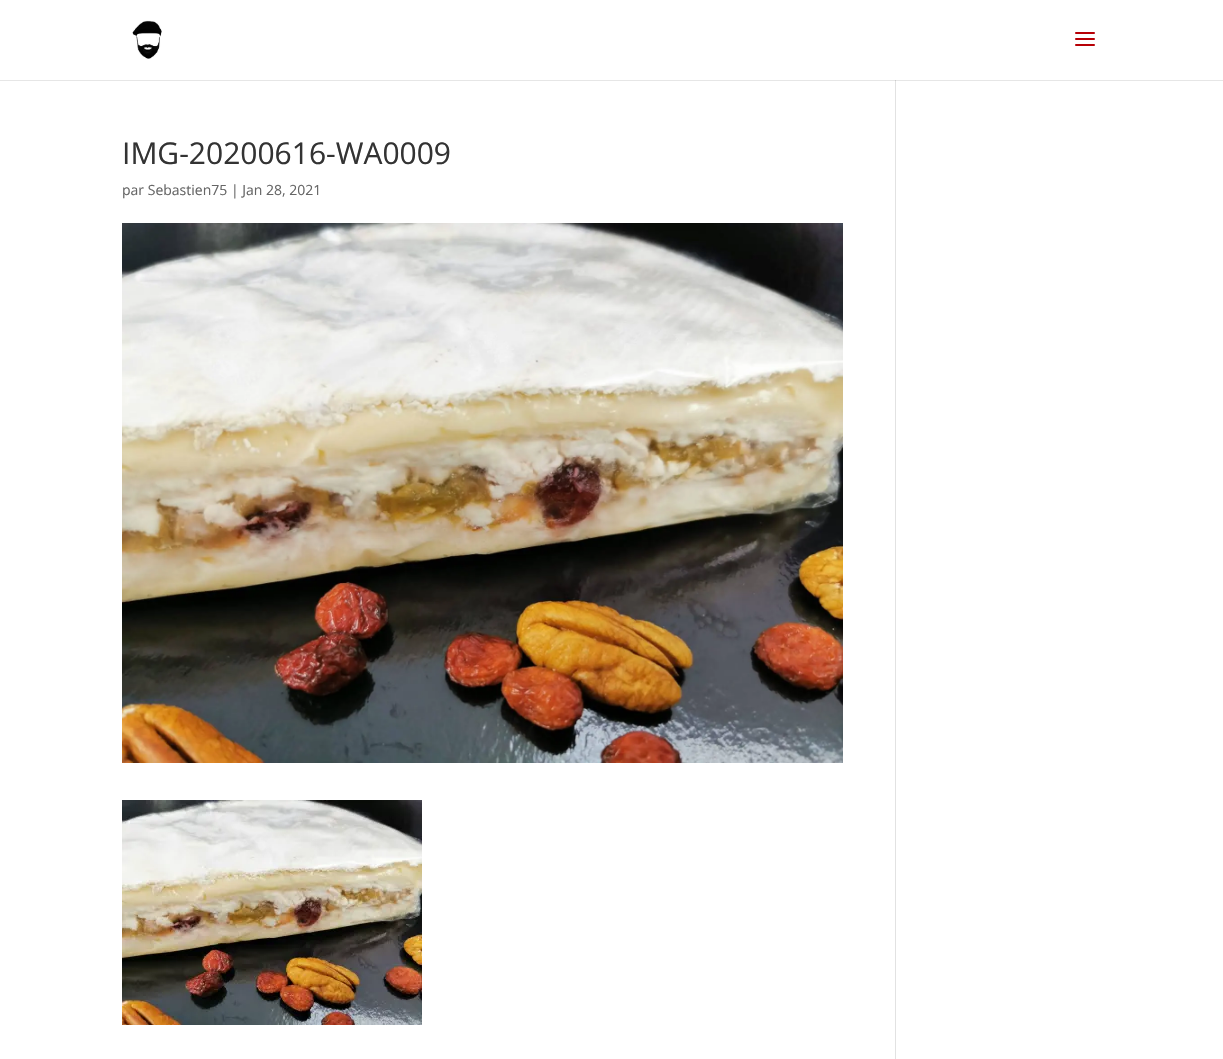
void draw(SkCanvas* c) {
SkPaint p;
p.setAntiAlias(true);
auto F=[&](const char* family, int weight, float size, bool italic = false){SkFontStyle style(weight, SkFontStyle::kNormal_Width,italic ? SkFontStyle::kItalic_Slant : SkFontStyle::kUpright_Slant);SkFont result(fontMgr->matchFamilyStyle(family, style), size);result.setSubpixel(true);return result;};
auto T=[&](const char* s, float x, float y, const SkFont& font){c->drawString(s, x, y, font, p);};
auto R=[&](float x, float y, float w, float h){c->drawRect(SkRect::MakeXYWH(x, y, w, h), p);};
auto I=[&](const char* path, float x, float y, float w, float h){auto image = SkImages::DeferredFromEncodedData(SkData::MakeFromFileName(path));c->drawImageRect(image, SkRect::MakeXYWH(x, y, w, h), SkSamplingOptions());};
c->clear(0xffffffff);
I("1.png",132,20,30,39);
I("2.png",1075,32,20,14);
p.setColor(0xffe6e6e6);
R(0,80,1223,1);
auto f1 = F("Open Sans",400,30);
p.setColor(0xff333333);
T("IMG-20200616-WA0009",122,164,f1);
auto f2 = F("Open Sans",400,14);
p.setColor(0xff666666);
T("par Sebastien75 | Jan 28, 2021",122,195,f2);
I("3.png",122,223,721,540);
I("4.png",122,800,300,225);
p.setColor(0xffe2e2e2);
R(895,80,1,979);
p.setColor(0xffcbcbcb);
R(895,80,1,1);
}
